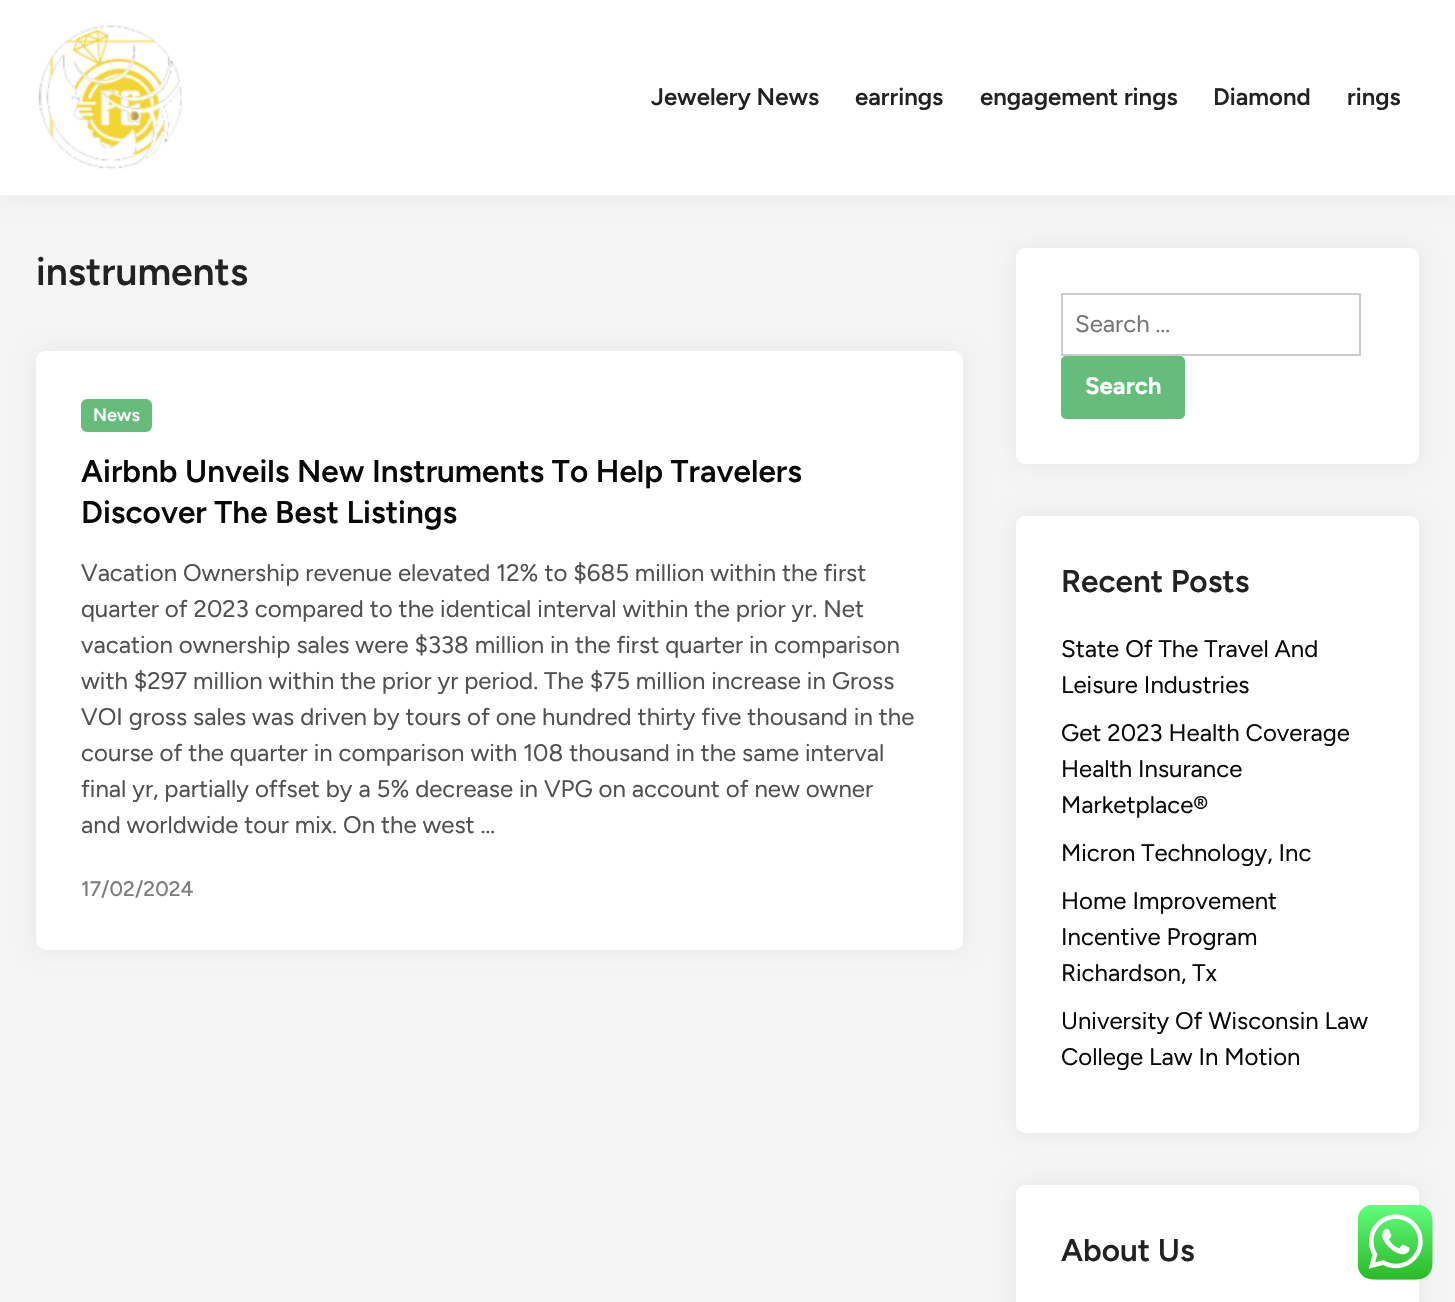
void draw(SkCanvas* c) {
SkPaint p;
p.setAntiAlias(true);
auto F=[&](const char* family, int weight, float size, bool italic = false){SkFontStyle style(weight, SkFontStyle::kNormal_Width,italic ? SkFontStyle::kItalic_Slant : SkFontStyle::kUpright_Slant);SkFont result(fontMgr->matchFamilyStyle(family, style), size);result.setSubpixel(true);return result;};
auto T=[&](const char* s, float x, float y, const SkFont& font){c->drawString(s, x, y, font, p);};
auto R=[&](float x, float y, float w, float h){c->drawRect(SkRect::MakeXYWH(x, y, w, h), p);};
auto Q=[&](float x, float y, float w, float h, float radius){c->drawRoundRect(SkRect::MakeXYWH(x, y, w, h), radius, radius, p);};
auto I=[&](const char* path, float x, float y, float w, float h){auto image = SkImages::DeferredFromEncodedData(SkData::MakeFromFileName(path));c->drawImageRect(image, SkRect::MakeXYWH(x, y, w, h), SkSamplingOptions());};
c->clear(0xfff5f5f5);
p.setColor(0x0f000000);
p.setMaskFilter(SkMaskFilter::MakeBlur(kNormal_SkBlurStyle, 11));
c->drawRect(SkRect::MakeXYWH(0,0,1455,195),p);
p.setMaskFilter(nullptr);
p.setColor(0xffffffff);
R(0,0,1455,195);
I("1.png",38,25,144,145);
auto f1 = F("Figtree",600,24);
p.setColor(0xff222222);
T("Jewelery News",651,105,f1);
T("earrings",855,105,f1);
T("engagement rings",980,105,f1);
T("Diamond",1213,105,f1);
T("rings",1347,105,f1);
auto f2 = F("Figtree",600,39);
T("instruments",36,285,f2);
p.setColor(0x0f000000);
p.setMaskFilter(SkMaskFilter::MakeBlur(kNormal_SkBlurStyle, 11));
c->drawRoundRect(SkRect::MakeXYWH(36,351,927,599),9,9,p);
p.setMaskFilter(nullptr);
p.setColor(0xffffffff);
Q(36,351,927,599,9);
p.setColor(0xff65bc7b);
Q(81,399,71,33,6);
auto f3 = F("Figtree",600,18);
p.setColor(0xffffffff);
T("News",93,421,f3);
auto f4 = F("Figtree",600,31.5);
p.setColor(0xff0a0808);
T("Airbnb Unveils New Instruments To Help Travelers",81,482,f4);
T("Discover The Best Listings",81,523,f4);
auto f5 = F("Figtree",400,24);
p.setColor(0xff505050);
T("Vacation Ownership revenue elevated 12% to $685 million within the first",81,581,f5);
T("quarter of 2023 compared to the identical interval within the prior yr. Net",81,617,f5);
T("vacation ownership sales were $338 million in the first quarter in comparison",81,653,f5);
T("with $297 million within the prior yr period. The $75 million increase in Gross",81,689,f5);
T("VOI gross sales was driven by tours of one hundred thirty five thousand in the",81,725,f5);
T("course of the quarter in comparison with 108 thousand in the same interval",81,761,f5);
T("final yr, partially offset by a 5% decrease in VPG on account of new owner",81,797,f5);
T("and worldwide tour mix. On the west …",81,833,f5);
auto f6 = F("Figtree",500,21);
p.setColor(0xff7d7d7d);
T("17/02/2024",81,896,f6);
p.setColor(0x0f000000);
p.setMaskFilter(SkMaskFilter::MakeBlur(kNormal_SkBlurStyle, 11));
c->drawRoundRect(SkRect::MakeXYWH(1016,248,403,216),9,9,p);
p.setMaskFilter(nullptr);
p.setColor(0xffffffff);
Q(1016,248,403,216,9);
p.setStroke(true);
p.setStrokeWidth(2);
p.setColor(0xffcccccc);
c->drawRect(SkRect::MakeXYWH(1062,294,298,61),p);
p.setStroke(false);
p.setColor(0xff757575);
T("Search …",1075,332,f5);
p.setColor(0xff65bc7b);
Q(1061,356,124,63,5);
auto f7 = F("Figtree",700,24);
p.setColor(0xffffffff);
T("Search",1085,394,f7);
p.setColor(0x0f000000);
p.setMaskFilter(SkMaskFilter::MakeBlur(kNormal_SkBlurStyle, 11));
c->drawRoundRect(SkRect::MakeXYWH(1016,516,403,617),9,9,p);
p.setMaskFilter(nullptr);
p.setColor(0xffffffff);
Q(1016,516,403,617,9);
p.setColor(0xff222222);
T("Recent Posts",1061,592,f4);
p.setColor(0xff0a0808);
T("State Of The Travel And",1061,657,f5);
T("Leisure Industries",1061,693,f5);
T("Get 2023 Health Coverage",1061,741,f5);
T("Health Insurance",1061,777,f5);
T("Marketplace®",1061,813,f5);
T("Micron Technology, Inc",1061,861,f5);
T("Home Improvement",1061,909,f5);
T("Incentive Program",1061,945,f5);
T("Richardson, Tx",1061,981,f5);
T("University Of Wisconsin Law",1061,1029,f5);
T("College Law In Motion",1061,1065,f5);
p.setColor(0x0f000000);
p.setMaskFilter(SkMaskFilter::MakeBlur(kNormal_SkBlurStyle, 11));
c->drawRoundRect(SkRect::MakeXYWH(1016,1185,403,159),9,9,p);
p.setMaskFilter(nullptr);
p.setColor(0xffffffff);
Q(1016,1185,403,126,9);
p.setColor(0xff222222);
T("About Us",1061,1261,f4);
I("2.png",1358,1205,75,75);
}
